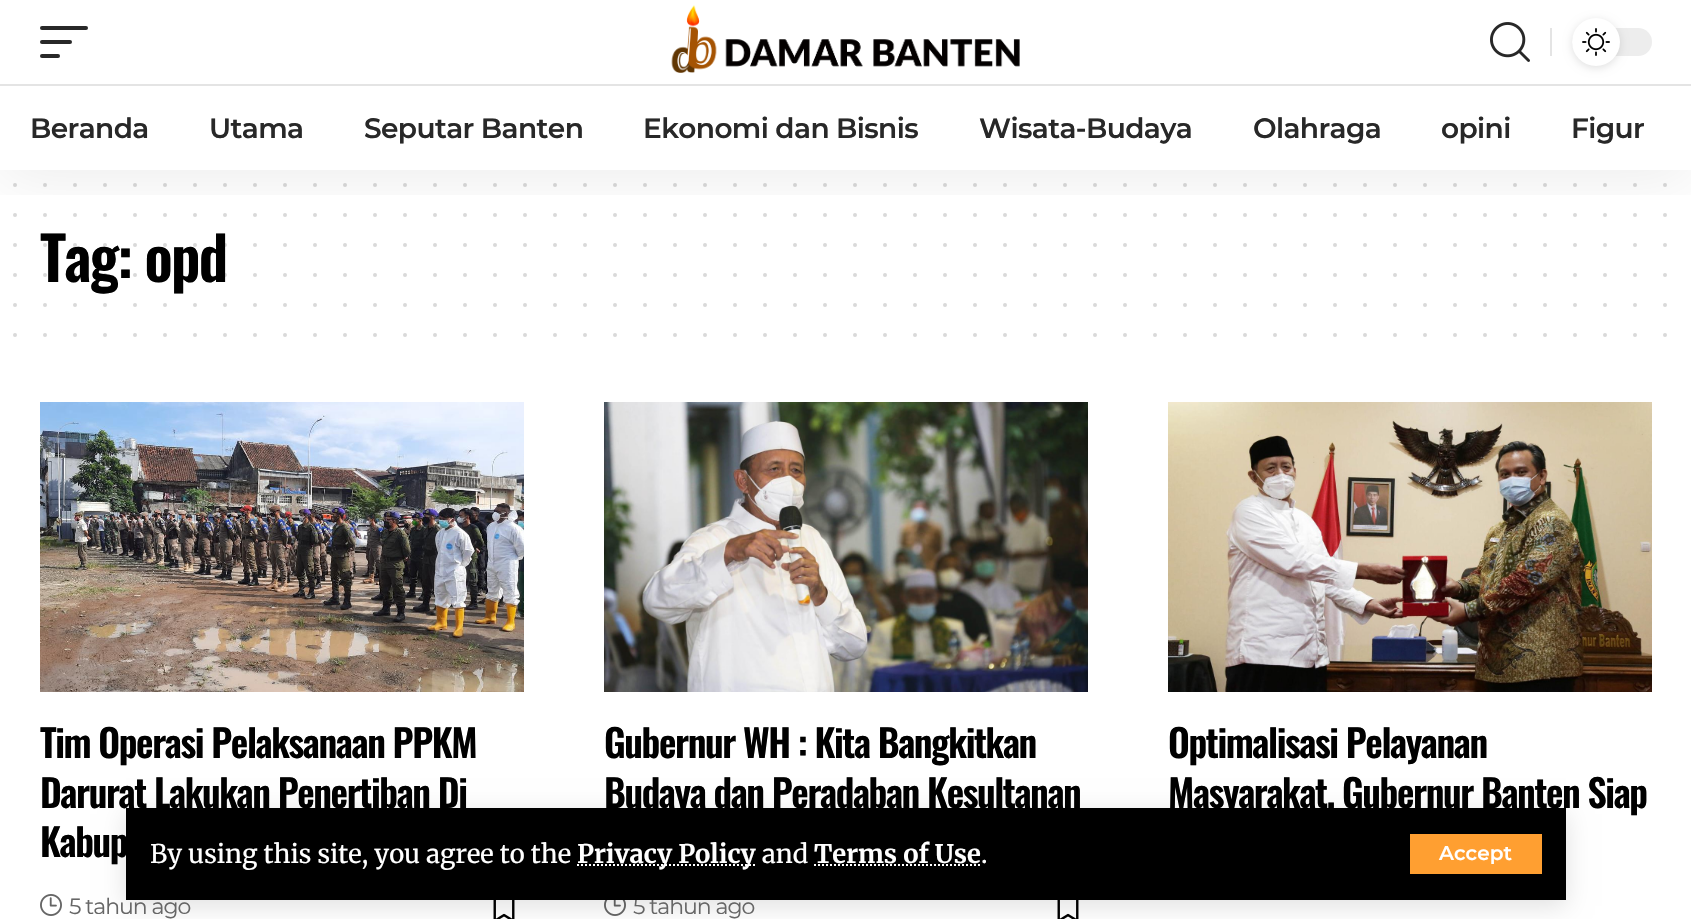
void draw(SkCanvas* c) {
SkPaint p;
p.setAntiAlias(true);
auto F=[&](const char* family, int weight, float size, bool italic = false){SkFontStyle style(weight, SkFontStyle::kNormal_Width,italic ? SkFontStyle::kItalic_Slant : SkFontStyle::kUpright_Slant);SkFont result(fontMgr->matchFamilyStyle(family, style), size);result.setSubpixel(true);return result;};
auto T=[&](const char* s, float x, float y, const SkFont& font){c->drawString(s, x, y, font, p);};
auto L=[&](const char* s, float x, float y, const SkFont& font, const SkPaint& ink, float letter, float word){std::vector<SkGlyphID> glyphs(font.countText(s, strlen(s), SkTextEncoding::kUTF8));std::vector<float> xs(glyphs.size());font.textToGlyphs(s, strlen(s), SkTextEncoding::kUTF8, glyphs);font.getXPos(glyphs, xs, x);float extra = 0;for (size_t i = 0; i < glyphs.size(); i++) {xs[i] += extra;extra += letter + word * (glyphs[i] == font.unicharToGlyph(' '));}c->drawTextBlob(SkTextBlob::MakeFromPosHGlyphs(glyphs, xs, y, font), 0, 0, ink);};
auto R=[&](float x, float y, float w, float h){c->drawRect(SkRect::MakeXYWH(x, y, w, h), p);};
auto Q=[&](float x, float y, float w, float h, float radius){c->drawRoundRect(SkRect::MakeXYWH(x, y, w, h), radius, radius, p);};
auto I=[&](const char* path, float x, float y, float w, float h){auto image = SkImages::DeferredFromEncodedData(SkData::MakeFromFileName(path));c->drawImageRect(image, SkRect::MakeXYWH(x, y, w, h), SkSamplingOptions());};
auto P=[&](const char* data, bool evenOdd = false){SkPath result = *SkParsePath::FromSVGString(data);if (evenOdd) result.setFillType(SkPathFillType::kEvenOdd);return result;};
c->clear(0xffffffff);
p.setStroke(true);
p.setStrokeWidth(4);
p.setStrokeCap(SkPaint::kRound_Cap);
p.setColor(0xffd9d9d9);
p.setPathEffect(SkDashPathEffect::Make({{0,30}}, 0));
c->drawPath(P("M15 185h1650.4"),p);
p.setPathEffect(nullptr);
p.setPathEffect(SkDashPathEffect::Make({{0,30}}, 0));
c->drawPath(P("M15 215h1650.4"),p);
p.setPathEffect(nullptr);
auto f1 = F("Oswald",600,60);
p.setStroke(false);
p.setColor(0xff000000);
L("Tag: opd",40,282,f1,p,-1.75,0);
p.setStroke(true);
p.setColor(0x26000000);
p.setPathEffect(SkDashPathEffect::Make({{0,30}}, 0));
c->drawPath(P("M15 245h1650.4"),p);
p.setPathEffect(nullptr);
c->save();
c->clipRect(SkRect::MakeXYWH(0,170,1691,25));
p.setStroke(false);
p.setColor(0x12000000);
p.setMaskFilter(SkMaskFilter::MakeBlur(kNormal_SkBlurStyle, 30));
c->drawRect(SkRect::MakeXYWH(0,8,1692,170),p);
p.setMaskFilter(nullptr);
c->restore();
p.setColor(0xff282828);
Q(40,26,48,4,2);
Q(40,40,32,4,2);
Q(40,54,20,4,2);
I("1.png",671,5,349,68);
I("2.png",1490,22,40,40);
p.setColor(0xffe4e4e4);
R(1550,28,2,28);
p.setColor(0xffededed);
Q(1572,28,80,28,14);
p.setColor(0x1f000000);
p.setMaskFilter(SkMaskFilter::MakeBlur(kNormal_SkBlurStyle, 4));
c->drawRoundRect(SkRect::MakeXYWH(1572,20,48,48),24,24,p);
p.setMaskFilter(nullptr);
p.setColor(0xffffffff);
c->drawCircle(1596,42,24,p);
I("3.png",1582,28,28,28);
p.setColor(0xffe4e4e4);
R(0,84,1691,2);
auto f2 = F("Montserrat",600,28);
p.setColor(0xff282828);
L("Beranda",30,138,f2,p,-.6,0);
L("Utama",209,138,f2,p,-.6,0);
L("Seputar Banten",364,138,f2,p,-.6,0);
L("Ekonomi dan Bisnis",643,138,f2,p,-.6,0);
L("Wisata-Budaya",979,138,f2,p,-.6,0);
L("Olahraga",1253,138,f2,p,-.6,0);
L("opini",1441,138,f2,p,-.6,0);
L("Figur",1571,138,f2,p,-.6,0);
I("6.png",493,900,22,19);
I("8.png",604,900,22,16);
I("6.png",1057,900,22,19);
p.setColor(0x1f000000);
p.setMaskFilter(SkMaskFilter::MakeBlur(kNormal_SkBlurStyle, 12));
c->drawRect(SkRect::MakeXYWH(126,814,1440,92),p);
p.setMaskFilter(nullptr);
auto f3 = F("Montserrat",400,22);
p.setColor(0xff666666);
L("5 tahun ago",69,914,f3,p,-1,0);
L("5 tahun ago",633,914,f3,p,-1,0);
p.setColor(0xff000000);
R(126,808,1440,92);
auto f4 = F("Merriweather",400,25.6);
p.setColor(0xffffffff);
T("By using this site, you agree to the",150,863,f4);
p.setStroke(true);
p.setStrokeWidth(2);
p.setStrokeCap(SkPaint::kButt_Cap);
p.setPathEffect(SkDashPathEffect::Make({{2,2}}, 0));
c->drawPath(P("M577 865h178.5"),p);
p.setPathEffect(nullptr);
auto f5 = F("Merriweather",700,25.6);
p.setStroke(false);
T("Privacy Policy",577,863,f5);
T("and",762,863,f4);
T("Terms of Use",814,863,f5);
p.setStroke(true);
p.setPathEffect(SkDashPathEffect::Make({{2,2}}, 0));
c->drawPath(P("M814 865h167"),p);
p.setPathEffect(nullptr);
p.setStroke(false);
T(".",981,863,f4);
p.setColor(0xffff9f31);
R(1410,834,132,40);
auto f6 = F("Montserrat",600,20);
p.setColor(0xffffffff);
T("Accept",1439,860,f6);
p.setStroke(true);
p.setStrokeWidth(4);
p.setStrokeCap(SkPaint::kRound_Cap);
p.setColor(0x26000000);
p.setPathEffect(SkDashPathEffect::Make({{0,30}}, 0));
c->drawPath(P("M15 275h1650.4"),p);
p.setPathEffect(nullptr);
p.setColor(0xffd9d9d9);
p.setPathEffect(SkDashPathEffect::Make({{0,30}}, 0));
c->drawPath(P("M15 305h1650.4"),p);
p.setPathEffect(nullptr);
p.setPathEffect(SkDashPathEffect::Make({{0,30}}, 0));
c->drawPath(P("M15 335h1650.4"),p);
p.setPathEffect(nullptr);
I("4.png",40,402,484,290);
auto f7 = F("Oswald",600,38);
p.setStroke(false);
p.setColor(0xff000000);
L("Tim Operasi Pelaksanaan PPKM",40,758,f7,p,-1.4,0);
L("Darurat Lakukan Penertiban Di",40,808,f7,p,-1.4,0);
L("Kabup",40,857,f7,p,-1.4,0);
I("5.png",40,894,22,22);
I("7.png",604,402,484,290);
L("Gubernur WH : Kita Bangkitkan",604,758,f7,p,-1.4,0);
L("Budaya dan Peradaban Kesultanan",604,808,f7,p,-1.4,0);
I("9.png",1168,402,484,290);
L("Optimalisasi Pelayanan",1168,758,f7,p,-1.4,0);
L("Masyarakat, Gubernur Banten Siap",1168,808,f7,p,-1.4,0);
}
